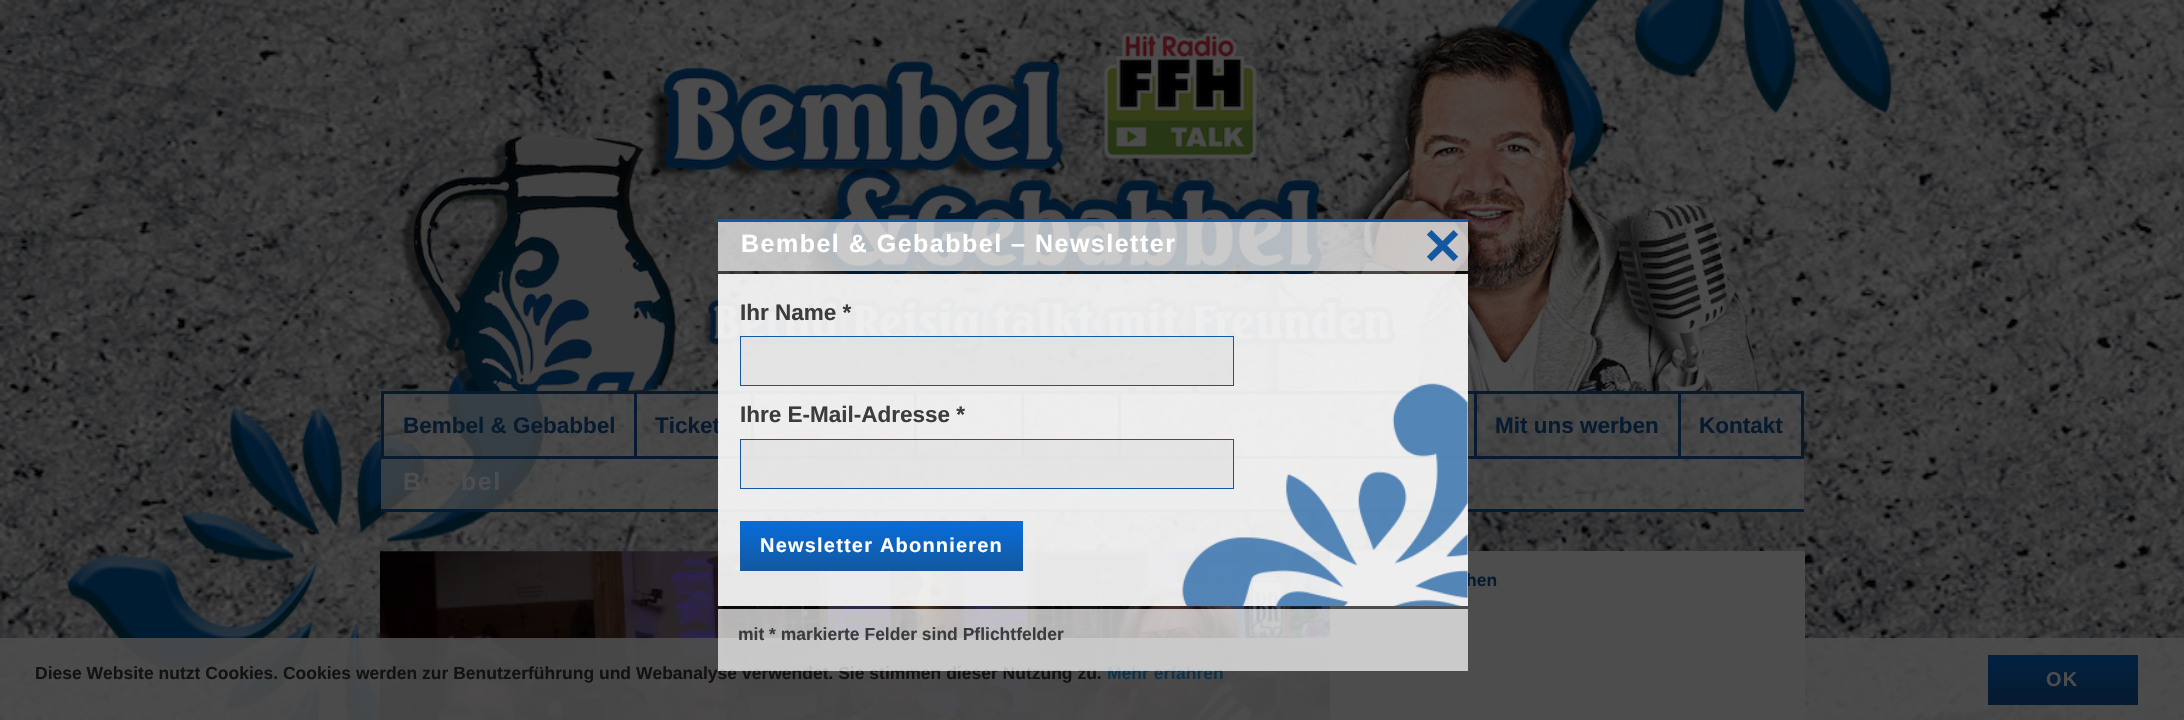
void draw(SkCanvas* c) {
SkPaint p;
p.setAntiAlias(true);
auto F=[&](const char* family, int weight, float size, bool italic = false){SkFontStyle style(weight, SkFontStyle::kNormal_Width,italic ? SkFontStyle::kItalic_Slant : SkFontStyle::kUpright_Slant);SkFont result(fontMgr->matchFamilyStyle(family, style), size);result.setSubpixel(true);return result;};
auto T=[&](const char* s, float x, float y, const SkFont& font){c->drawString(s, x, y, font, p);};
auto L=[&](const char* s, float x, float y, const SkFont& font, const SkPaint& ink, float letter, float word){std::vector<SkGlyphID> glyphs(font.countText(s, strlen(s), SkTextEncoding::kUTF8));std::vector<float> xs(glyphs.size());font.textToGlyphs(s, strlen(s), SkTextEncoding::kUTF8, glyphs);font.getXPos(glyphs, xs, x);float extra = 0;for (size_t i = 0; i < glyphs.size(); i++) {xs[i] += extra;extra += letter + word * (glyphs[i] == font.unicharToGlyph(' '));}c->drawTextBlob(SkTextBlob::MakeFromPosHGlyphs(glyphs, xs, y, font), 0, 0, ink);};
auto R=[&](float x, float y, float w, float h){c->drawRect(SkRect::MakeXYWH(x, y, w, h), p);};
auto I=[&](const char* path, float x, float y, float w, float h){auto image = SkImages::DeferredFromEncodedData(SkData::MakeFromFileName(path));c->drawImageRect(image, SkRect::MakeXYWH(x, y, w, h), SkSamplingOptions());};
c->clear(0xffffffff);
I("1.png",0,0,2184,720);
I("2.png",67,0,1825,720);
I("5.png",401,21,1359,370);
p.setColor(0xb3ffffff);
R(718,222,750,49);
p.setColor(0xff1358a0);
R(718,219,750,3);
auto f1 = F("Liberation Sans",700,25);
p.setColor(0xffffffff);
L("Bembel & Gebabbel – Newsletter",741,252,f1,p,1.5,0);
I("3.png",1426,230,33,32);
p.setColor(0xb34d4d4d);
R(384,394,1417,62);
p.setColor(0xff061a30);
R(381,391,1423,3);
R(381,456,1423,3);
R(751,394,3,62);
auto f2 = F("Liberation Sans",700,22.5);
T("Ticket",655,433,f2);
R(914,394,3,62);
R(1021,394,3,62);
R(1118,394,3,62);
p.setColor(0xb34d4d4d);
R(381,459,1423,50);
p.setColor(0xff061a30);
R(381,509,1423,3);
I("6.png",380,551,950,169);
p.setColor(0xff4d4d4d);
R(1330,551,475,169);
auto f3 = F("Liberation Sans",700,17.5);
p.setColor(0xff061a30);
T("hen",1466,586,f3);
p.setColor(0xe6ffffff);
R(718,274,750,332);
p.setColor(0xff3c3c3c);
T("Ihr Name *",740,320,f2);
p.setColor(0x4dd2d2d2);
c->drawRect(SkRect::MakeXYWH(740.5,336.5,493,49),p);
p.setStroke(true);
p.setStrokeWidth(1);
p.setColor(0xff1358a0);
c->drawRect(SkRect::MakeXYWH(740.5,336.5,493,49),p);
p.setStroke(false);
p.setColor(0xff3c3c3c);
T("Ihre E-Mail-Adresse *",740,422,f2);
p.setColor(0x4dd2d2d2);
c->drawRect(SkRect::MakeXYWH(740.5,439.5,493,49),p);
p.setStroke(true);
p.setColor(0xff1358a0);
c->drawRect(SkRect::MakeXYWH(740.5,439.5,493,49),p);
p.setStroke(false);
{
const SkColor colors[] = {0xff086dd9,0xff1358a0};
const float stops[] = {0,1};
const SkPoint ends[] = {{881,521}, {881,571}};
p.setShader(SkGradientShader::MakeLinear(ends, colors, stops, 2, SkTileMode::kClamp));
p.setAlpha(255);
}
R(740,521,283,50);
auto f4 = F("Liberation Sans",700,20);
p.setShader(nullptr);
p.setColor(0xffffffff);
L("Newsletter Abonnieren",760,552,f4,p,1.2,0);
I("4.png",1182,383,286,224);
p.setColor(0xe64d4d4d);
R(0,638,2184,82);
p.setColor(0xff121212);
T("Diese Website nutzt Cookies. Cookies werden zur Benutzerführung und Webanalyse verwendet. Sie stimmen dieser Nutzung zu.",35,679,f3);
p.setColor(0xff0f3248);
T("Mehr erfahren",1107,679,f3);
p.setColor(0xb3ffffff);
R(718,609,750,62);
p.setColor(0xff3c3c3c);
T("mit * markierte Felder sind Pflichtfelder",738,640,f3);
p.setColor(0xff061a30);
R(634,394,3,62);
R(381,394,3,62);
T("Bembel & Gebabbel",403,433,f2);
R(1678,394,3,62);
R(1474,394,3,62);
T("Mit uns werben",1495,433,f2);
R(1801,394,3,62);
T("Kontakt",1699,433,f2);
p.setColor(0xff4d4d4d);
L("B",403,490,f1,p,1.5,0);
L("bel",461,490,f1,p,1.5,0);
{
const SkColor colors[] = {0xff022141,0xff061a30};
const float stops[] = {0,1};
const SkPoint ends[] = {{2063,655}, {2063,705}};
p.setShader(SkGradientShader::MakeLinear(ends, colors, stops, 2, SkTileMode::kClamp));
p.setAlpha(255);
}
R(1988,655,150,50);
p.setShader(nullptr);
p.setColor(0xff4d4d4d);
L("OK",2046,686,f4,p,1.2,0);
}
